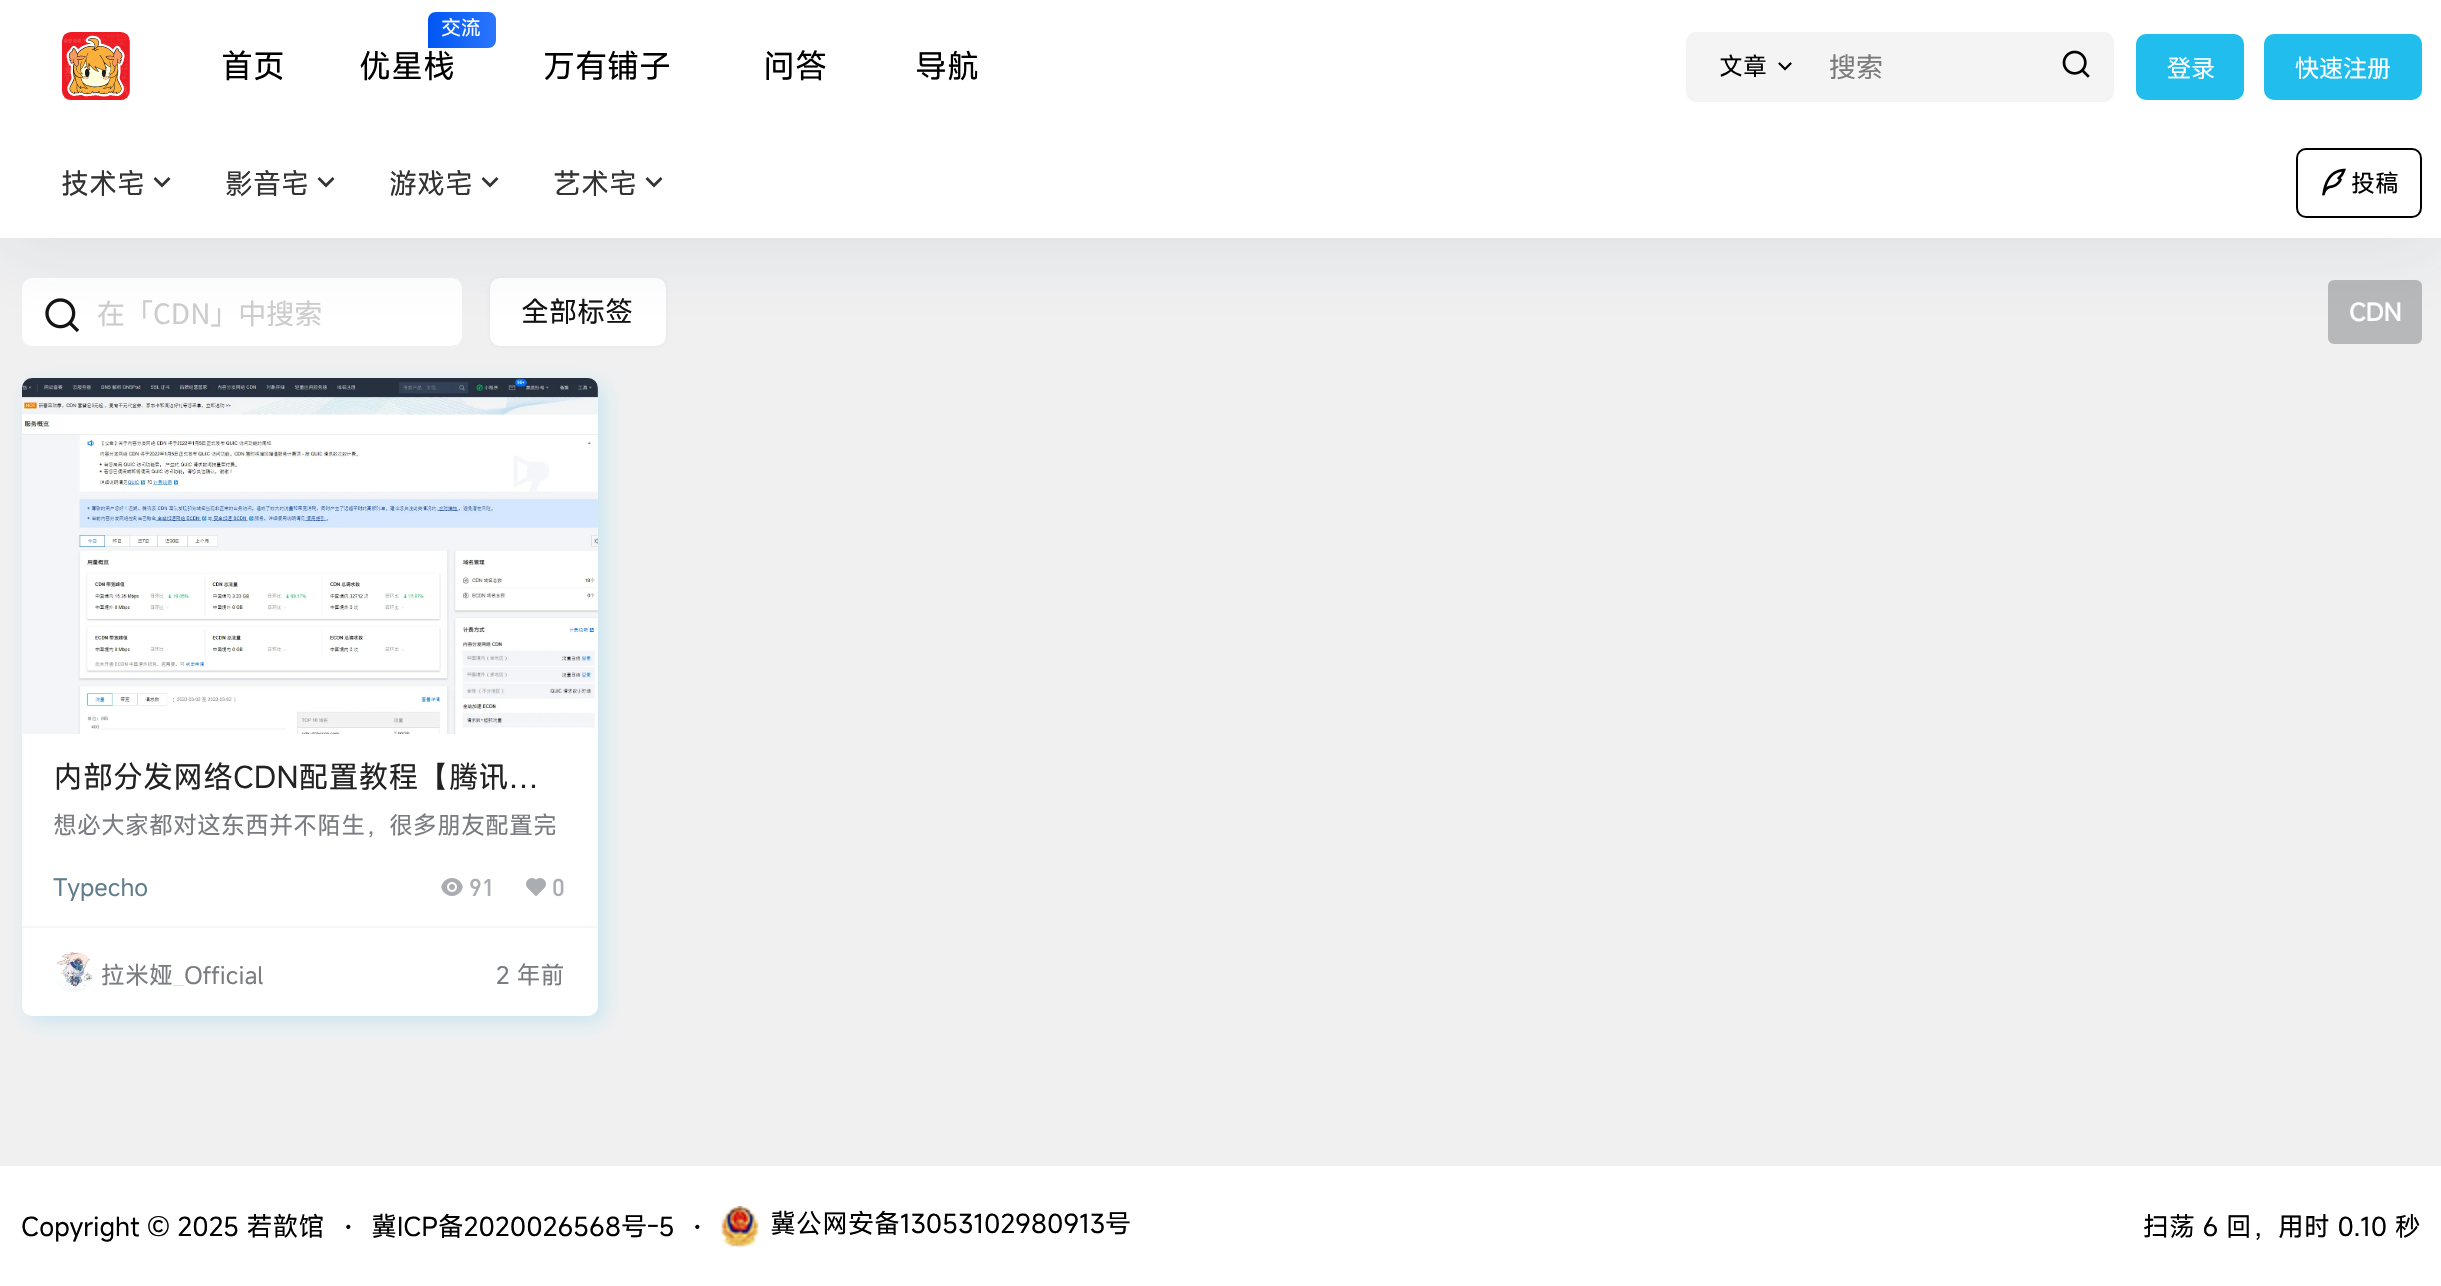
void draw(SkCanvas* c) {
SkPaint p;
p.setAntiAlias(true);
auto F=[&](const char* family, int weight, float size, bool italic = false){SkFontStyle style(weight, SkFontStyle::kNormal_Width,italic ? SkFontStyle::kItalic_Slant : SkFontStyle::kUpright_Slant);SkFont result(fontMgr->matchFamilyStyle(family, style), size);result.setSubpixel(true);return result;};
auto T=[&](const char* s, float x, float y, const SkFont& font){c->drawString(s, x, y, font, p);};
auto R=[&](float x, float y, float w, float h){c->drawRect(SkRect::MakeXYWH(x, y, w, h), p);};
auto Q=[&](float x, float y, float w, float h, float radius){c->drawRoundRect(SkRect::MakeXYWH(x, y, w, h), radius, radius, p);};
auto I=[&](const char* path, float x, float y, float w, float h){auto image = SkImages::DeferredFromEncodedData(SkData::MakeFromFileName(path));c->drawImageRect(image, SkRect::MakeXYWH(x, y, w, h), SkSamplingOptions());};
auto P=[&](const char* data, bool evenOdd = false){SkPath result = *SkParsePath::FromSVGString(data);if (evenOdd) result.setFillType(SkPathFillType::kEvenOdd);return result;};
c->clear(0xfff0f0f1);
p.setColor(0xffffffff);
Q(22,278,440,68,10);
I("5.png",45,298,35,35);
p.setColor(0x1a627c99);
p.setMaskFilter(SkMaskFilter::MakeBlur(kNormal_SkBlurStyle, 2));
c->drawRoundRect(SkRect::MakeXYWH(490,278,176,68),10,10,p);
p.setMaskFilter(nullptr);
p.setColor(0xffffffff);
Q(490,278,176,68,10);
I("6.png",2328,280,94,64);
p.setColor(0x42000000);
Q(2328,280,94,64,6);
p.setColor(0x1a113a5d);
p.setMaskFilter(SkMaskFilter::MakeBlur(kNormal_SkBlurStyle, 40));
c->drawRect(SkRect::MakeXYWH(0,10,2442,238),p);
p.setMaskFilter(nullptr);
p.setColor(0xffffffff);
R(0,0,2441,238);
I("1.png",62,32,68,68);
auto f1 = F("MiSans",400,32);
p.setColor(0xff000000);
T("首页",221,78,f1);
{
const SkColor colors[] = {0xff0056f3,0xff2b76ff};
const float stops[] = {0,1};
const SkPoint ends[] = {{428,29}, {496,29}};
p.setShader(SkGradientShader::MakeLinear(ends, colors, stops, 2, SkTileMode::kClamp));
p.setAlpha(255);
}
c->drawPath(P("M436 12h52c4.5 0 8 3.5 8 8v20c0 4.5-3.5 8-8 8h-60v-28c0-4.5 3.5-8 8-8z"),p);
auto f2 = F("MiSans",400,20);
p.setShader(nullptr);
p.setColor(0xffffffff);
T("交流",441,35,f2);
p.setColor(0xff000000);
T("优星栈",359,78,f1);
T("万有铺子",543,78,f1);
T("问答",763,78,f1);
T("导航",915,78,f1);
p.setColor(0xfff4f4f4);
Q(1686,32,428,70,10);
auto f3 = F("MiSans",400,24);
p.setColor(0xff000000);
T("文章",1719,75,f3);
I("2.png",1778,62,14,9);
auto f4 = F("Noto Sans CJK SC",400,27);
p.setColor(0xff7a7a7a);
T("搜索",1829,77,f4);
I("3.png",2062,50,28,28);
p.setColor(0xff21bded);
Q(2136,34,108,66,10);
auto f5 = F("Noto Sans CJK SC",400,24);
p.setColor(0xffffffff);
T("登录",2167,77,f5);
p.setColor(0xff21bded);
Q(2264,34,158,66,10);
p.setColor(0xffffffff);
T("快速注册",2295,77,f5);
auto f6 = F("MiSans",400,28);
p.setColor(0xff333333);
T("技术宅",61,194,f6);
c->drawPath(P("M162 183.5l6.5-6.5l2 2l-8.5 8.5l-8.5-8.5l2-2z"),p);
T("影音宅",225,194,f6);
c->drawPath(P("M326 183.5l6.5-6.5l2 2l-8.5 8.5l-8.5-8.5l2-2z"),p);
T("游戏宅",389,194,f6);
c->drawPath(P("M490 183.5l6.5-6.5l2 2l-8.5 8.5l-8.5-8.5l2-2z"),p);
T("艺术宅",553,194,f6);
c->drawPath(P("M654 183.5l6.5-6.5l2 2l-8.5 8.5l-8.5-8.5l2-2z"),p);
p.setStroke(true);
p.setStrokeWidth(2);
p.setColor(0xff000000);
c->drawRoundRect(SkRect::MakeXYWH(2297,149,124,68),9,9,p);
I("4.png",2322,168,24,28);
p.setStroke(false);
T("投稿",2351,192,f3);
auto f7 = F("Noto Sans CJK SC",400,28);
p.setColor(0xffcccccc);
T("在「CDN」中搜索",97,324,f7);
p.setColor(0xff121212);
T("全部标签",521,322,f6);
auto f8 = F("MiSans",700,24);
p.setColor(0xffffffff);
T("CDN",2349,321,f8);
p.setColor(0x3321bded);
p.setMaskFilter(SkMaskFilter::MakeBlur(kNormal_SkBlurStyle, 10));
c->drawRoundRect(SkRect::MakeXYWH(28,384,576,638),10,10,p);
p.setMaskFilter(nullptr);
p.setColor(0xffffffff);
Q(22,378,576,638,10);
p.setColor(0xfff5f6f7);
c->drawPath(P("M32 378h556c5.5 0 10 4.5 10 10v346h-576v-346c0-5.5 4.5-10 10-10z"),p);
I("7.png",22,378,576,356);
auto f9 = F("MiSans",400,30);
p.setColor(0xff222222);
T("内部分发网络CDN配置教程【腾讯…",53,788,f9);
p.setColor(0xff797c80);
T("想必大家都对这东西并不陌生，很多朋友配置完",53,834,f3);
p.setColor(0xff607d8b);
T("Typecho",53,896,f3);
I("8.png",441,878,22,18);
auto f10 = F("DIN",500,24);
p.setColor(0xffaaaeb3);
T("91",469,896,f10);
I("9.png",526,878,20,19);
T("0",552,896,f10);
p.setColor(0xfff5f6f7);
R(22,926,576,2);
p.setColor(0xffeeeeee);
c->drawCircle(74,972,20,p);
I("10.png",54,952,40,40);
c->save();
c->clipRect(SkRect::MakeXYWH(102,958,162,28));
p.setColor(0xff797c80);
T("拉米娅_Official",101,984,f3);
c->restore();
T("2 年前",496,984,f3);
p.setColor(0xffffffff);
R(0,1166,2441,120);
auto f11 = F("MiSans",400,26);
p.setColor(0xff000000);
T("Copyright © 2025 若歆馆",21,1236,f11);
auto f12 = F("WenQuanYi Zen Hei",500,26);
T("・",335,1236,f12);
T("冀ICP备2020026568号-5",371,1236,f11);
T("・",684,1236,f12);
I("11.png",721,1206,38,41);
T("冀公网安备13053102980913号",770,1233,f11);
T("扫荡 6 回，用时 0.10 秒",2143,1236,f11);
}
